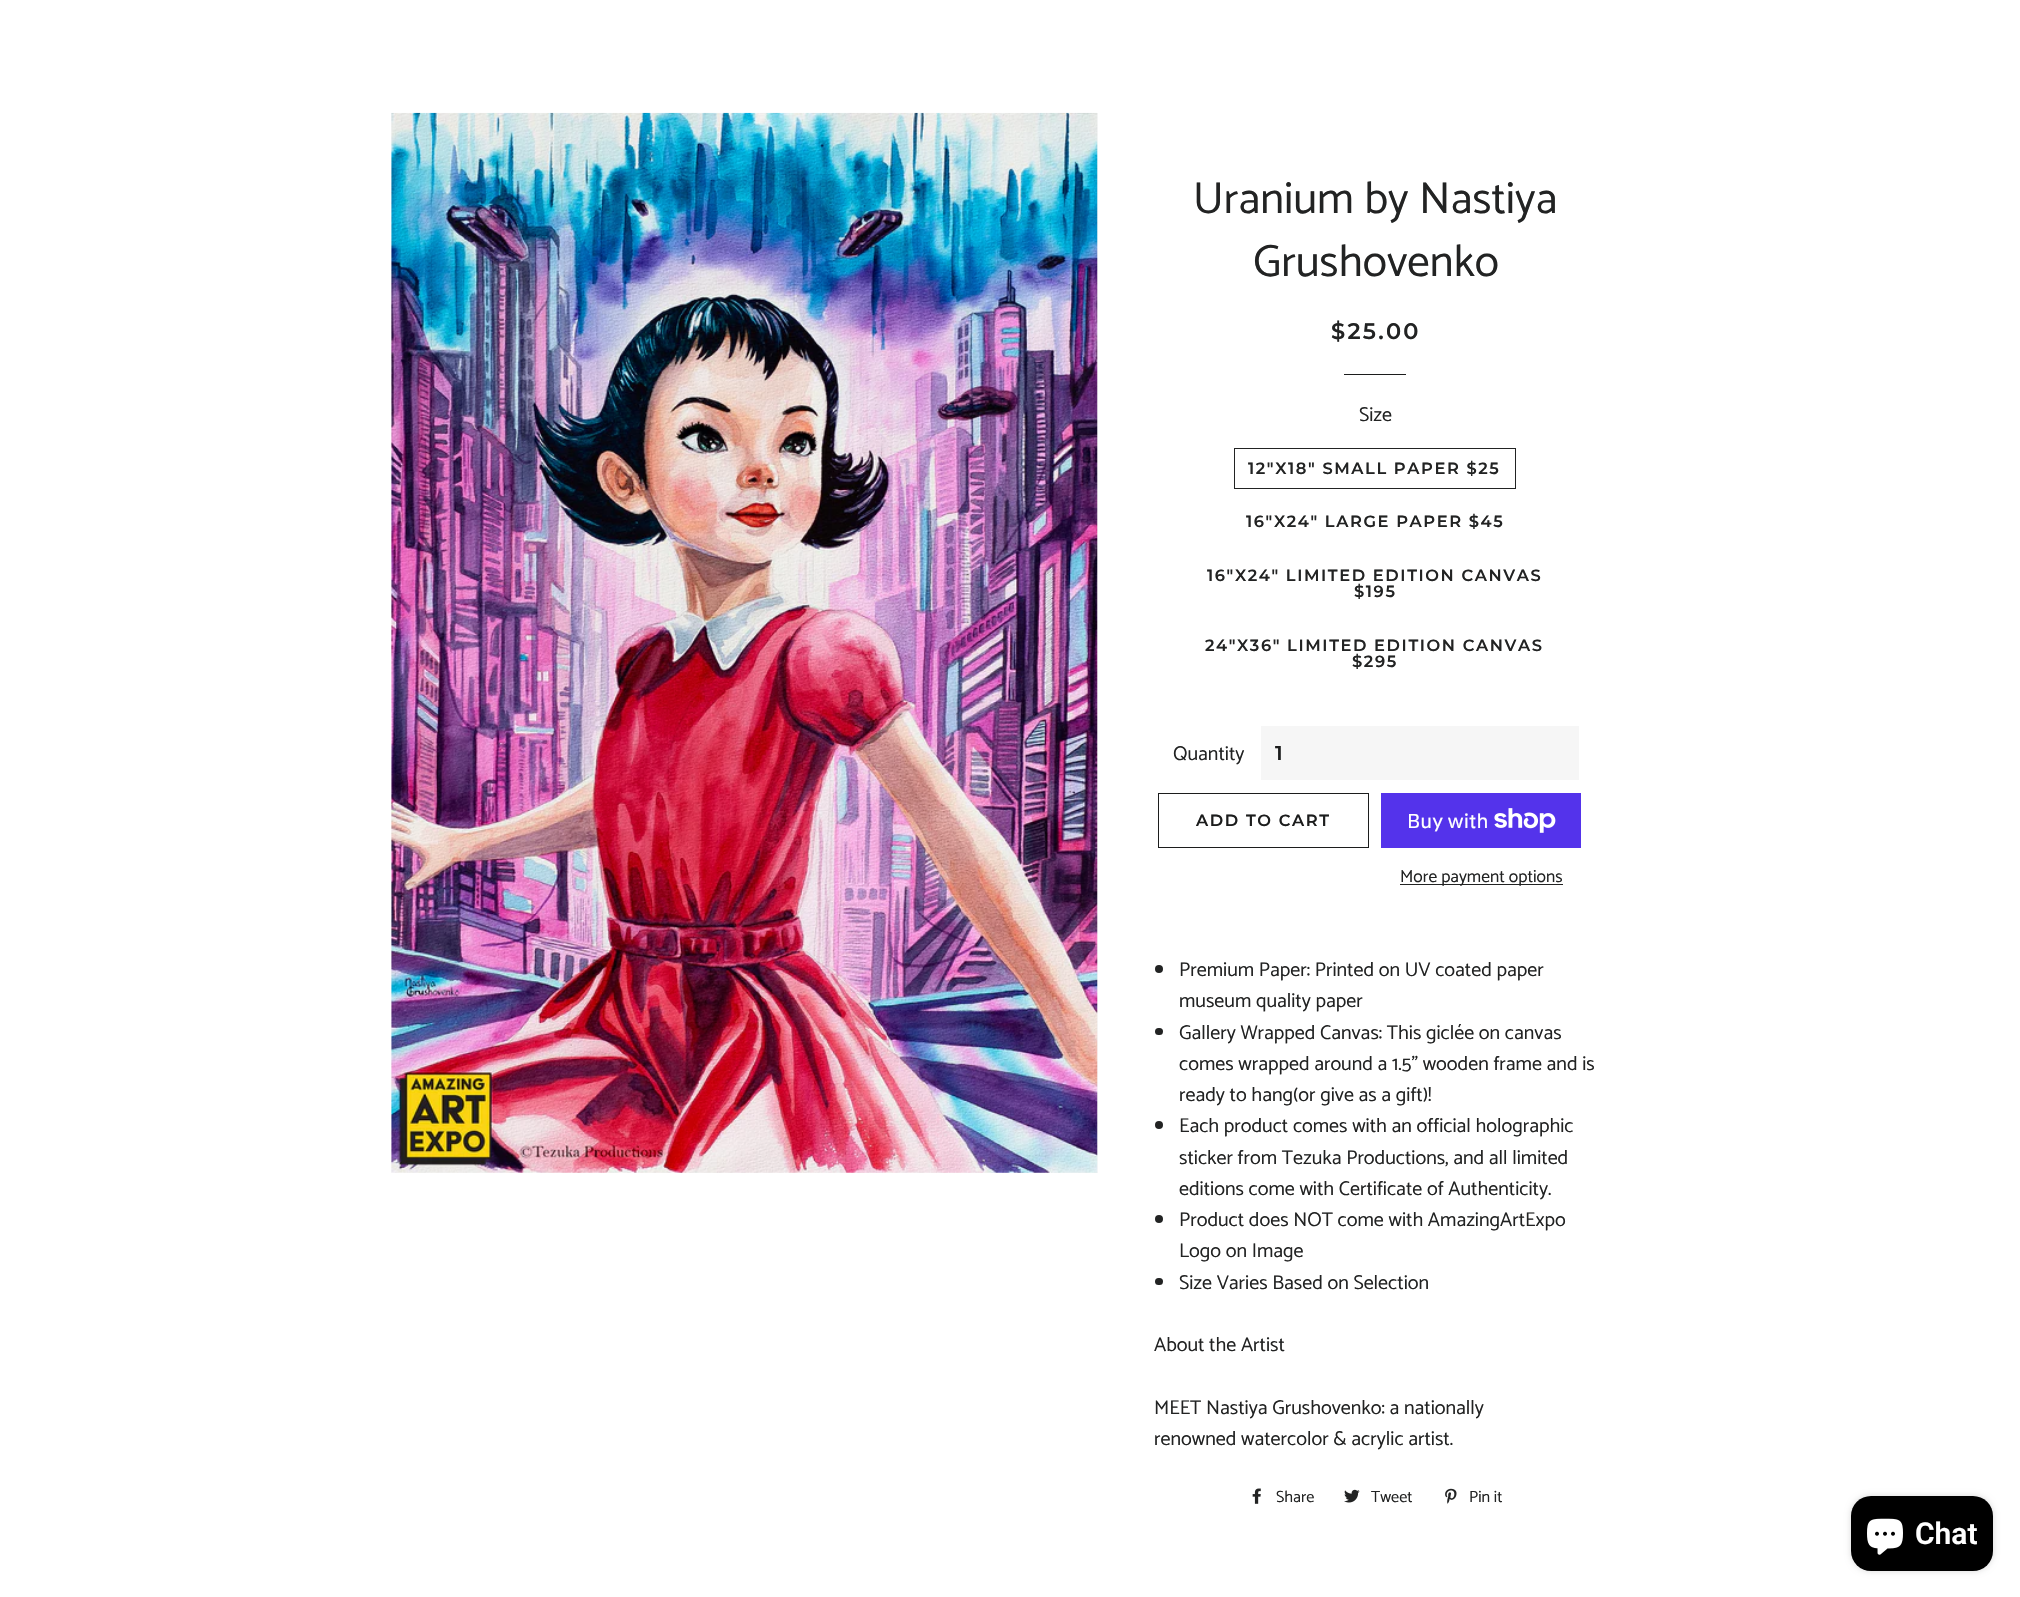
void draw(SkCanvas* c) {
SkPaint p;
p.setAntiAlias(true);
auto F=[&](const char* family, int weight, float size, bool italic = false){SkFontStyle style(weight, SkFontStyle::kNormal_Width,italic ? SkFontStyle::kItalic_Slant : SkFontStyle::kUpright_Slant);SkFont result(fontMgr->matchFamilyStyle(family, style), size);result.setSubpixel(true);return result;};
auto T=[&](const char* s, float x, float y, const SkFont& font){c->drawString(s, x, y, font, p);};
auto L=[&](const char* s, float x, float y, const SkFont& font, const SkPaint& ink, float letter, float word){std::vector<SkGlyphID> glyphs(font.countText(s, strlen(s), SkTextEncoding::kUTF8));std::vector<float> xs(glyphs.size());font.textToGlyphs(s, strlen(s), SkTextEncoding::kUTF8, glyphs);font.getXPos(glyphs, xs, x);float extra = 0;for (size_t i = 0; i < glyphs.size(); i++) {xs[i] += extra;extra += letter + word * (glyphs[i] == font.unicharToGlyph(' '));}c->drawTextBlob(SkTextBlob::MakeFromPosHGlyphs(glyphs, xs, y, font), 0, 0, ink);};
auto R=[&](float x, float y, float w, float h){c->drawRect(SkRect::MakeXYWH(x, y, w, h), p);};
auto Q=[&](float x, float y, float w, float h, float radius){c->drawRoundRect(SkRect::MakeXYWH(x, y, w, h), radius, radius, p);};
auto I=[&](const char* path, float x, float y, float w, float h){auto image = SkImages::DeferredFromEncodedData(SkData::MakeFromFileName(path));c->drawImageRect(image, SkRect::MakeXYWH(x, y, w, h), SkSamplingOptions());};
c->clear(0xffffffff);
p.setColor(0xfff7f7f7);
R(391,113,707,1060);
I("1.png",391,112,707,1061);
auto f1 = F("Catamaran",400,45);
p.setColor(0xff222323);
T("Uranium by Nastiya",1193,213,f1);
T("Grushovenko",1253,276,f1);
auto f2 = F("Montserrat",600,22.5);
L("$25.00",1331,339,f2,p,2.25,0);
p.setColor(0xff1c1d1d);
R(1344,374,62,1);
auto f3 = F("Catamaran",400,20);
p.setColor(0xff222323);
T("Size",1359,421,f3);
p.setStroke(true);
p.setStrokeWidth(1);
c->drawRect(SkRect::MakeXYWH(1234.5,448.5,281,40),p);
auto f4 = F("Montserrat",600,16.25);
p.setStroke(false);
L("12\"X18\" SMALL PAPER $25",1248,474,f4,p,1.6,0);
L("16\"X24\" LARGE PAPER $45",1246,527,f4,p,1.6,0);
L("16\"X24\" LIMITED EDITION CANVAS",1207,581,f4,p,1.6,0);
L("$195",1354,597,f4,p,1.6,0);
L("24\"X36\" LIMITED EDITION CANVAS",1205,651,f4,p,1.6,0);
L("$295",1352,667,f4,p,1.6,0);
T("Quantity",1173,760,f3);
p.setColor(0xfff6f6f6);
R(1261,726,318,54);
auto f5 = F("Montserrat",600,20);
p.setColor(0xff1c1d1d);
L("1",1275,760,f5,p,2,0);
p.setStroke(true);
c->drawRect(SkRect::MakeXYWH(1158.5,793.5,210,54),p);
p.setStroke(false);
L("ADD TO CART",1196,826,f4,p,1.6,0);
p.setColor(0xff5433eb);
R(1381,793,200,55);
auto f6 = F("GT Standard",400,20);
p.setColor(0xffffffff);
T("Buy with",1407,828,f6);
I("2.png",1494,808,62,25);
p.setColor(0xff222323);
R(1400,884,163,1);
auto f7 = F("Catamaran",400,17.5);
T("More payment options",1400,882,f7);
c->drawCircle(1159,969,4,p);
T("Premium Paper: Printed on UV coated paper",1179,976,f3);
T("museum quality paper",1179,1007,f3);
Q(1155,1028,8,7,3.5);
T("Gallery Wrapped Canvas: This giclée on canvas",1179,1039,f3);
T("comes wrapped around a 1.5\" wooden frame and is",1179,1070,f3);
T("ready to hang(or give as a gift)!",1179,1101,f3);
c->drawCircle(1159,1125,4,p);
T("Each product comes with an official holographic",1179,1132,f3);
T("sticker from Tezuka Productions, and all limited",1179,1164,f3);
T("editions come with Certificate of Authenticity.",1179,1195,f3);
c->drawCircle(1159,1219,4,p);
T("Product does NOT come with AmazingArtExpo",1179,1226,f3);
T("Logo on Image",1179,1257,f3);
Q(1155,1278,8,7,3.5);
T("Size Varies Based on Selection",1179,1289,f3);
T("About the Artist",1154,1351,f3);
T("MEET Nastiya Grushovenko: a nationally",1154,1414,f3);
T("renowned watercolor & acrylic artist.",1154,1445,f3);
I("3.png",1252,1488,9,16);
auto f8 = F("Catamaran",400,16.25);
T("Share",1276,1502,f8);
I("4.png",1344,1489,16,14);
T("Tweet",1371,1502,f8);
I("5.png",1445,1488,12,16);
T("Pin it",1469,1502,f8);
p.setColor(0x26000000);
p.setMaskFilter(SkMaskFilter::MakeBlur(kNormal_SkBlurStyle, 3));
c->drawRoundRect(SkRect::MakeXYWH(1851,1496,142,75),20,20,p);
p.setMaskFilter(nullptr);
p.setColor(0xff000000);
Q(1851,1496,142,75,20);
I("6.png",1867,1518,36,37);
auto f9 = F("Roboto",600,30);
p.setColor(0xffffffff);
T("Chat",1915,1544,f9);
}
